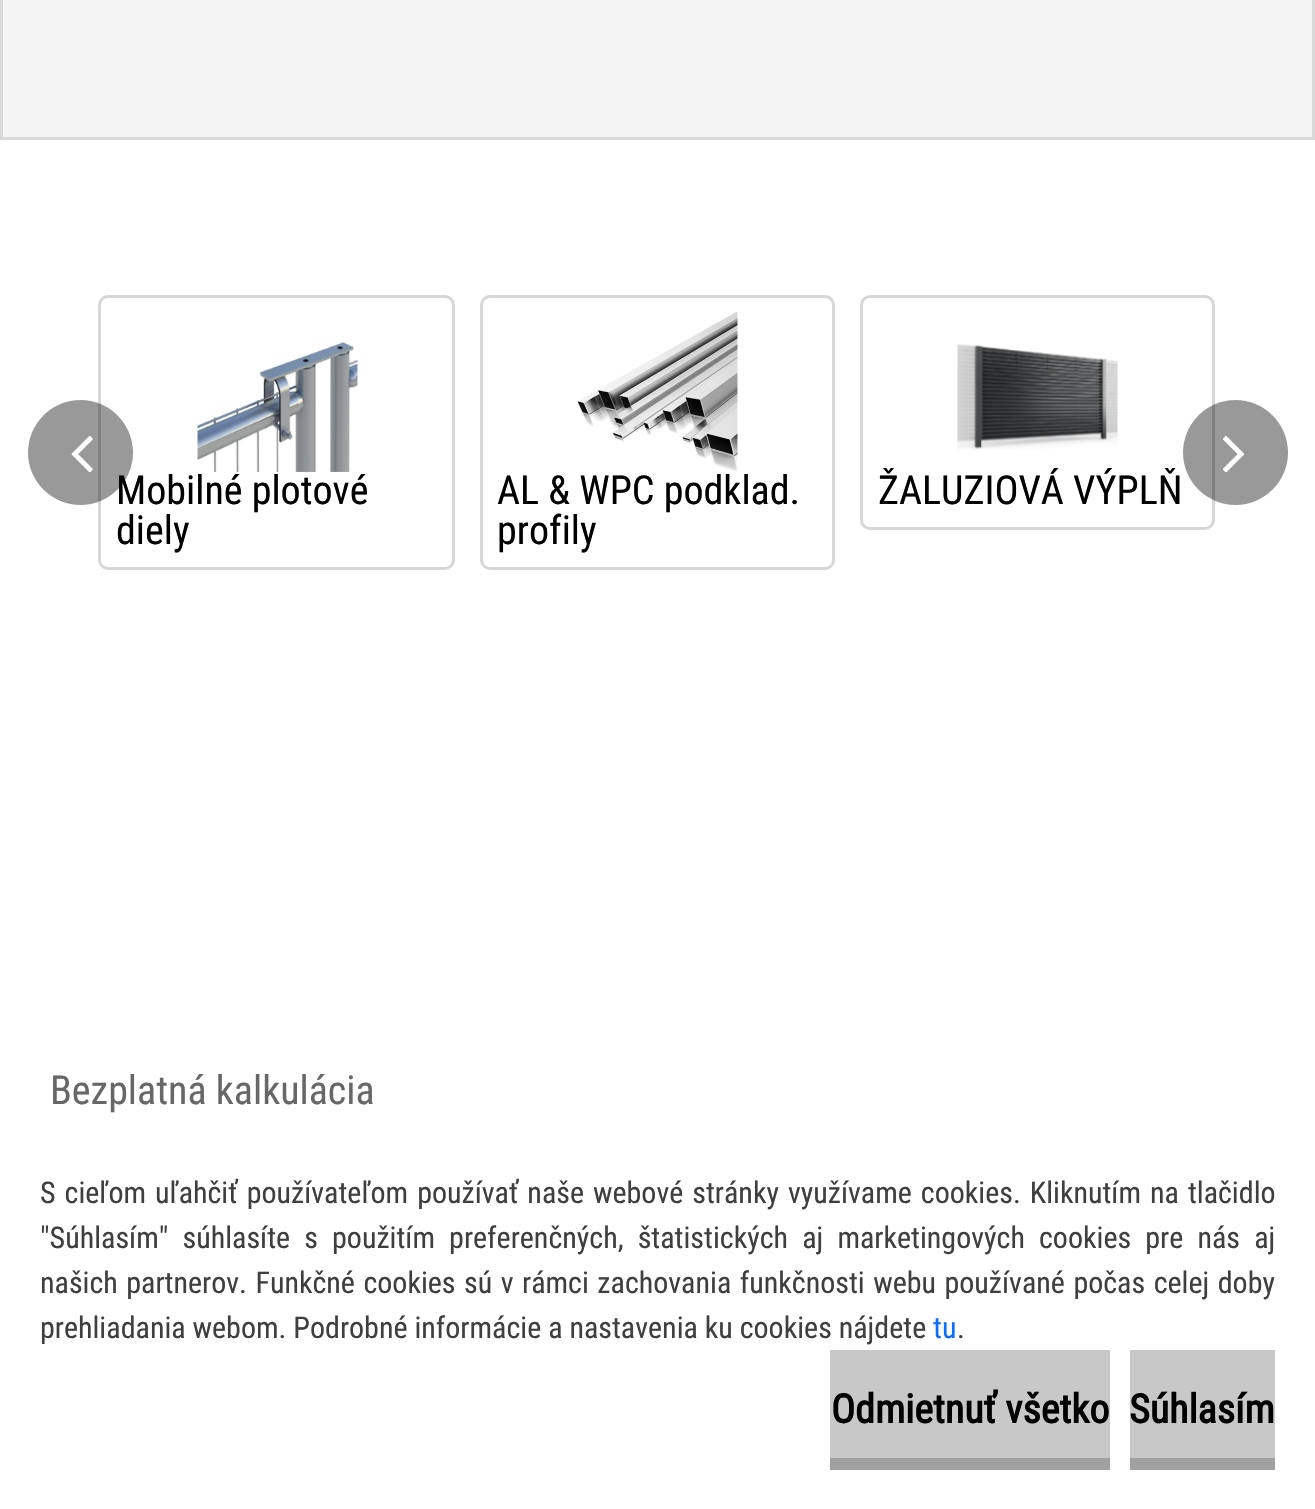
void draw(SkCanvas* c) {
SkPaint p;
p.setAntiAlias(true);
auto F=[&](const char* family, int weight, float size, bool italic = false){SkFontStyle style(weight, SkFontStyle::kNormal_Width,italic ? SkFontStyle::kItalic_Slant : SkFontStyle::kUpright_Slant);SkFont result(fontMgr->matchFamilyStyle(family, style), size);result.setSubpixel(true);return result;};
auto T=[&](const char* s, float x, float y, const SkFont& font){c->drawString(s, x, y, font, p);};
auto L=[&](const char* s, float x, float y, const SkFont& font, const SkPaint& ink, float letter, float word){std::vector<SkGlyphID> glyphs(font.countText(s, strlen(s), SkTextEncoding::kUTF8));std::vector<float> xs(glyphs.size());font.textToGlyphs(s, strlen(s), SkTextEncoding::kUTF8, glyphs);font.getXPos(glyphs, xs, x);float extra = 0;for (size_t i = 0; i < glyphs.size(); i++) {xs[i] += extra;extra += letter + word * (glyphs[i] == font.unicharToGlyph(' '));}c->drawTextBlob(SkTextBlob::MakeFromPosHGlyphs(glyphs, xs, y, font), 0, 0, ink);};
auto R=[&](float x, float y, float w, float h){c->drawRect(SkRect::MakeXYWH(x, y, w, h), p);};
auto I=[&](const char* path, float x, float y, float w, float h){auto image = SkImages::DeferredFromEncodedData(SkData::MakeFromFileName(path));c->drawImageRect(image, SkRect::MakeXYWH(x, y, w, h), SkSamplingOptions());};
c->clear(0xffffffff);
p.setColor(0xfff4f4f4);
c->drawRect(SkRect::MakeXYWH(1.5,-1.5,1312,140),p);
p.setStroke(true);
p.setStrokeWidth(3);
p.setColor(0xffd9d9d9);
c->drawRect(SkRect::MakeXYWH(1.5,-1.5,1312,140),p);
p.setColor(0xffd8d6d6);
c->drawRoundRect(SkRect::MakeXYWH(99.5,296.5,354,272),8.5,8.5,p);
auto f1 = F("Roboto Condensed",400,40);
p.setStroke(false);
p.setColor(0xff000000);
T("Mobilné plotové",116,504,f1);
p.setColor(0x66000000);
c->drawCircle(80.5,452.5,52.5,p);
I("1.png",71,436,22,37);
p.setStroke(true);
p.setColor(0xffd8d6d6);
c->drawRoundRect(SkRect::MakeXYWH(861.5,296.5,352,232),8.5,8.5,p);
p.setStroke(false);
p.setColor(0x66000000);
c->drawCircle(1235.5,452.5,52.5,p);
I("2.png",1223,436,21,37);
I("3.png",197,342,161,130);
p.setColor(0xff000000);
T("diely",116,544,f1);
p.setStroke(true);
p.setColor(0xffd8d6d6);
c->drawRoundRect(SkRect::MakeXYWH(481.5,296.5,352,272),8.5,8.5,p);
I("4.png",577,312,161,160);
p.setStroke(false);
p.setColor(0xff000000);
T("AL & WPC podklad.",497,504,f1);
T("profily",497,544,f1);
I("5.png",957,343,161,107);
T("ŽALUZIOVÁ VÝPLŇ",878,504,f1);
p.setColor(0xff676767);
T("Bezplatná kalkulácia",50,1104,f1);
auto f2 = F("Roboto Condensed",400,30);
p.setColor(0xff3f3f3f);
L("S cieľom uľahčiť používateľom používať naše webové stránky využívame cookies. Kliknutím na tlačidlo",40,1203,f2,p,0,2.1);
L("\"Súhlasím\" súhlasíte s použitím preferenčných, štatistických aj marketingových cookies pre nás aj",40,1248,f2,p,0,7.25);
L("našich partnerov. Funkčné cookies sú v rámci zachovania funkčnosti webu používané počas celej doby",40,1293,f2,p,0,1.6);
T("prehliadania webom. Podrobné informácie a nastavenia ku cookies nájdete",40,1338,f2);
p.setColor(0xff0d6efd);
T("tu",933,1338,f2);
p.setColor(0xff3f3f3f);
T(".",957,1338,f2);
p.setColor(0xffc8c8c8);
R(830,1350,280,108);
p.setColor(0xffa0a0a0);
R(830,1458,280,12);
auto f3 = F("Roboto Condensed",700,40);
p.setColor(0xff000000);
T("Odmietnuť všetko",831,1423,f3);
p.setColor(0xffc8c8c8);
R(1130,1350,145,108);
p.setColor(0xffa0a0a0);
R(1130,1458,145,12);
p.setColor(0xff000000);
T("Súhlasím",1129,1423,f3);
}
